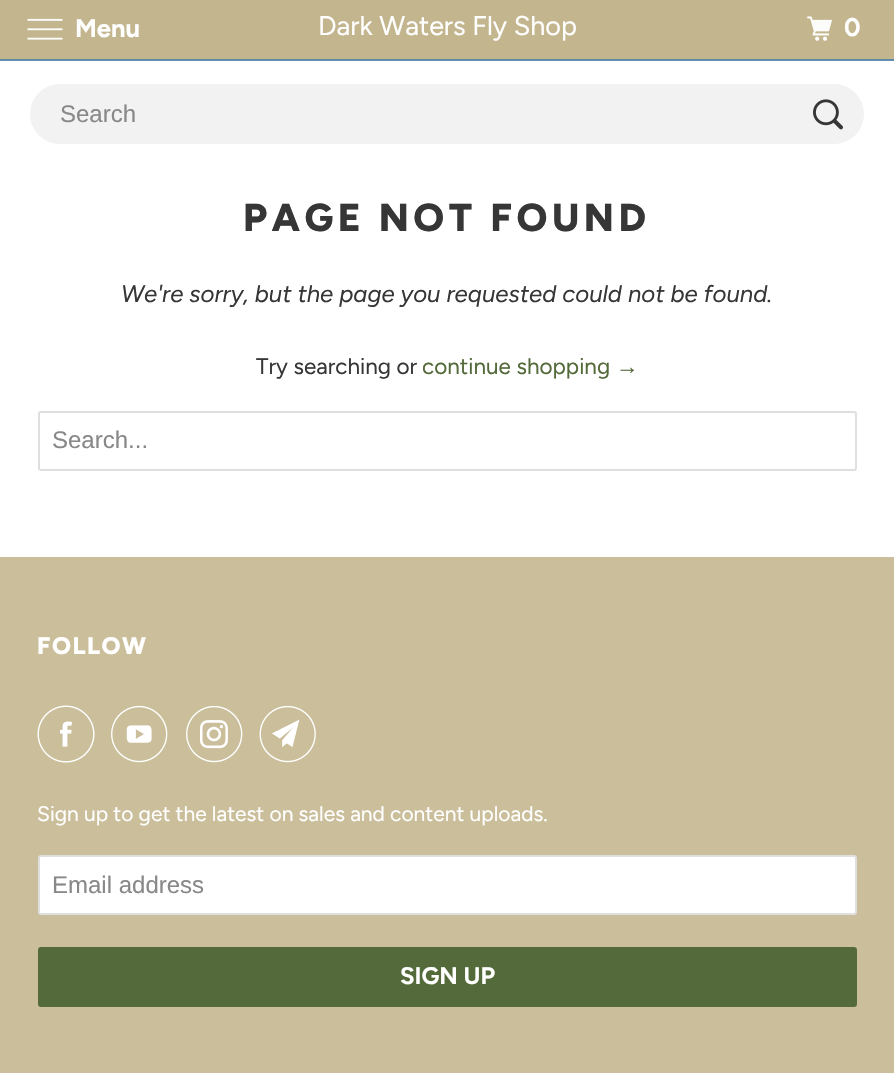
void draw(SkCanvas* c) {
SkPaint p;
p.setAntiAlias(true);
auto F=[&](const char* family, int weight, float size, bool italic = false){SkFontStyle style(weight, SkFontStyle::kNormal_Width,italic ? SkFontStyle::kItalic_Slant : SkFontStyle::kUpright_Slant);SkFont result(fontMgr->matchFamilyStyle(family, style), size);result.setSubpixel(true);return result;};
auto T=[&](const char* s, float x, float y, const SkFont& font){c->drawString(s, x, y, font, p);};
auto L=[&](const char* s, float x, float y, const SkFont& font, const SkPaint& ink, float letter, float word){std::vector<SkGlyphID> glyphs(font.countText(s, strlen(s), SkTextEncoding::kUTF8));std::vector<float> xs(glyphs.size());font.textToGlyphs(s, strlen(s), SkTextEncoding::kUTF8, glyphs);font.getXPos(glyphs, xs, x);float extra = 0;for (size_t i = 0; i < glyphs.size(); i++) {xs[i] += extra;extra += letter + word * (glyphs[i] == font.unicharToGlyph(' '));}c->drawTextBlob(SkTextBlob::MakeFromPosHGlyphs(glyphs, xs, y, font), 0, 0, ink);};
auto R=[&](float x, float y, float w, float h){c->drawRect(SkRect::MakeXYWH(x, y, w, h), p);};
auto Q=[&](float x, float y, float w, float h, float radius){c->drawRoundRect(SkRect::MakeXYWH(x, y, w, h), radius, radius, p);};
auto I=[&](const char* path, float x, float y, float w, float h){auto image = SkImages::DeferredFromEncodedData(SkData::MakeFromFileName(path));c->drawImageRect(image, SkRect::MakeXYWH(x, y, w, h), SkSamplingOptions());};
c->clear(0xffffffff);
p.setColor(0xffc3b68f);
R(0,0,894,59);
p.setColor(0xff5d8aa9);
R(0,59,894,1);
I("1.png",27,18,36,22);
auto f1 = F("Figtree",700,25.5);
p.setColor(0xffffffff);
T("Menu",75,37,f1);
auto f2 = F("Figtree",400,27);
T("Dark Waters Fly Shop",318,35,f2);
I("2.png",807,16,25,25);
T("0",844,36,f1);
p.setColor(0xff608eae);
R(0,60,894,1);
p.setColor(0xfff2f2f2);
Q(30,84,834,60,30);
auto f3 = F("Liberation Sans",400,24);
p.setColor(0xff888888);
T("Search",60,122,f3);
I("3.png",813,99,30,31);
auto f4 = F("Figtree",800,39);
p.setColor(0xff363636);
L("PAGE NOT FOUND",243,231,f4,p,4.5,0);
auto f5 = F("Figtree",400,24,true);
T("We're sorry, but the page you requested could not be found.",121,302,f5);
auto f6 = F("Figtree",400,22.5);
T("Try searching or",256,374,f6);
p.setColor(0xff546a3a);
T("continue shopping",422,374,f6);
auto f7 = F("Liberation Sans",400,22.5);
T("→",616,374,f7);
p.setStroke(true);
p.setStrokeWidth(2);
p.setColor(0xffdfdfdf);
c->drawRoundRect(SkRect::MakeXYWH(39,412,817,58),2,2,p);
p.setStroke(false);
p.setColor(0xff888888);
T("Search...",52,448,f3);
p.setColor(0xffcabe9b);
R(0,557,894,516);
auto f8 = F("Figtree",800,24);
p.setColor(0xffffffff);
L("FOLLOW",37,654,f8,p,1.5,0);
I("4.png",37,705,58,58);
I("5.png",111,705,57,58);
I("6.png",186,705,57,58);
I("7.png",259,705,57,58);
auto f9 = F("Figtree",400,21);
T("Sign up to get the latest on sales and content uploads.",37,821,f9);
c->drawRoundRect(SkRect::MakeXYWH(39,856,817,58),2,2,p);
p.setStroke(true);
p.setColor(0xffdfdfdf);
c->drawRoundRect(SkRect::MakeXYWH(39,856,817,58),2,2,p);
p.setStroke(false);
p.setColor(0xff888888);
T("Email address",52,893,f3);
p.setColor(0xff546a3a);
Q(38,947,819,60,3);
auto f10 = F("Figtree",700,24);
p.setColor(0xffffffff);
T("SIGN UP",400,984,f10);
}
